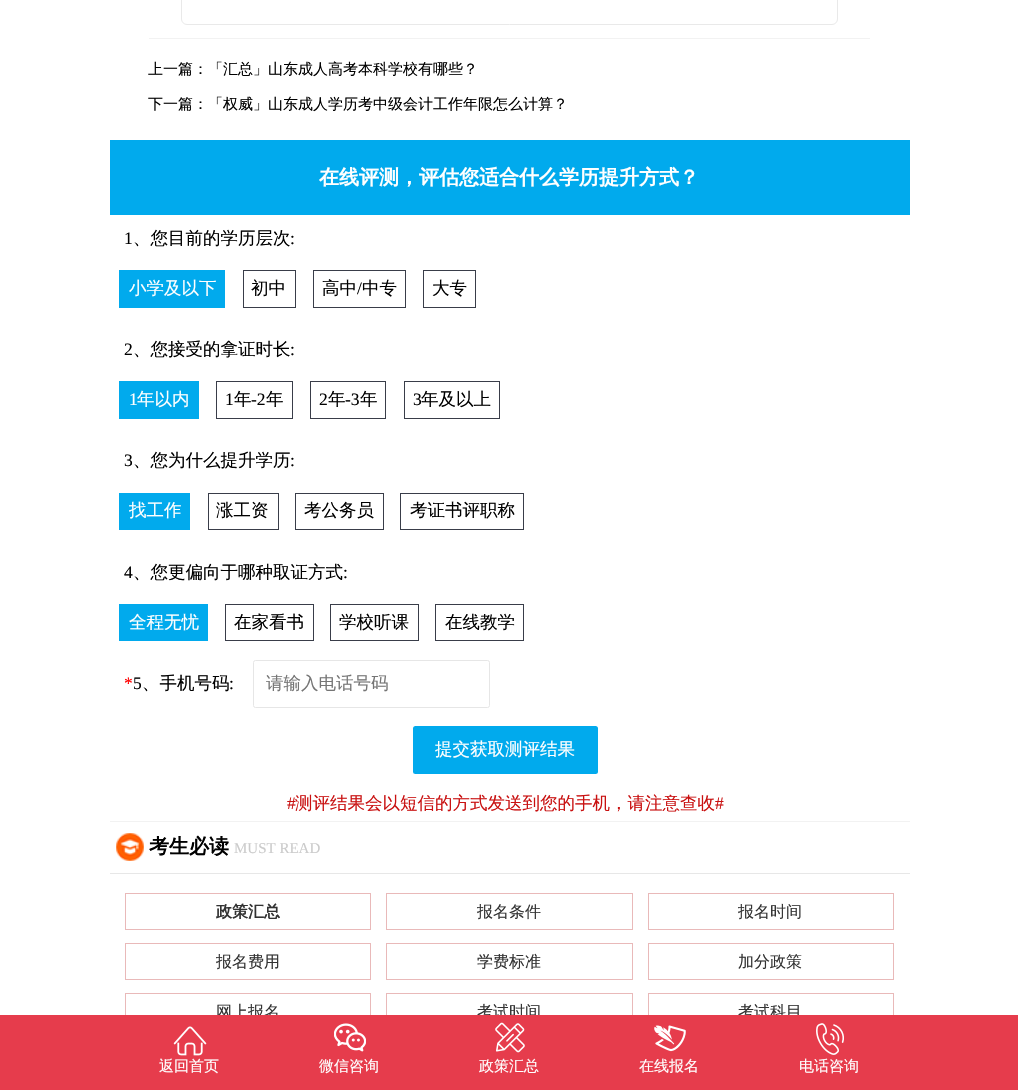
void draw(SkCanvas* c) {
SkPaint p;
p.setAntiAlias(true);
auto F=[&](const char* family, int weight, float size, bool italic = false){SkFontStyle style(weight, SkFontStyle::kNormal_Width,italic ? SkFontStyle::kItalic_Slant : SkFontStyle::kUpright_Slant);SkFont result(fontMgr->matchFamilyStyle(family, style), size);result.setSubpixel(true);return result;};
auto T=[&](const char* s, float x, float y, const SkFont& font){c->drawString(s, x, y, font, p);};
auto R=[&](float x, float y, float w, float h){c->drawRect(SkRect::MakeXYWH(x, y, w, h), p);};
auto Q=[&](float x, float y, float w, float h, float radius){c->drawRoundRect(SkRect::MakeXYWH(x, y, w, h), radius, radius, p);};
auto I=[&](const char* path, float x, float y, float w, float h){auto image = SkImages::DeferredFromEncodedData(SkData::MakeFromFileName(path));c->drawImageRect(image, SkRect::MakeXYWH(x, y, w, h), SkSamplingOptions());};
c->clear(0xffffffff);
p.setStroke(true);
p.setStrokeWidth(1);
p.setColor(0xffe9e9e9);
c->drawRoundRect(SkRect::MakeXYWH(181.5,-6.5,656,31),5.5,5.5,p);
p.setStroke(false);
p.setColor(0xfff2f2f2);
R(149,38,721,1);
auto f1 = F("WenQuanYi Zen Hei",500,15);
p.setColor(0xff000000);
T("上一篇：「汇总」山东成人高考本科学校有哪些？",148,74,f1);
T("下一篇：「权威」山东成人学历考中级会计工作年限怎么计算？",148,109,f1);
p.setColor(0xff01aaed);
R(110,140,800,75);
auto f2 = F("WenQuanYi Zen Hei",700,20);
p.setColor(0xffffffff);
T("在线评测，评估您适合什么学历提升方式？",319,184,f2);
auto f3 = F("Liberation Serif",400,17.5);
p.setColor(0xff000000);
T("1",124,244,f3);
auto f4 = F("WenQuanYi Zen Hei",500,17.5);
T("、您目前的学历层次",133,244,f4);
T(":",290,244,f3);
p.setColor(0xff01aaed);
R(119,270,106,38);
p.setColor(0xffffffff);
T("小学及以下",129,294,f4);
p.setStroke(true);
p.setColor(0xff393d49);
c->drawRect(SkRect::MakeXYWH(243.5,270.5,52,37),p);
p.setStroke(false);
p.setColor(0xff000000);
T("初中",251,294,f4);
p.setStroke(true);
p.setColor(0xff393d49);
c->drawRect(SkRect::MakeXYWH(313.5,270.5,92,37),p);
p.setStroke(false);
p.setColor(0xff000000);
T("高中",322,294,f4);
T("/",357,294,f3);
T("中专",362,294,f4);
p.setStroke(true);
p.setColor(0xff393d49);
c->drawRect(SkRect::MakeXYWH(423.5,270.5,52,37),p);
p.setStroke(false);
p.setColor(0xff000000);
T("大专",432,294,f4);
T("2",124,355,f3);
T("、您接受的拿证时长",133,355,f4);
T(":",290,355,f3);
p.setColor(0xff01aaed);
R(119,381,80,38);
p.setColor(0xffffffff);
T("1",129,405,f3);
T("年以内",137,405,f4);
p.setStroke(true);
p.setColor(0xff393d49);
c->drawRect(SkRect::MakeXYWH(216.5,381.5,76,37),p);
p.setStroke(false);
p.setColor(0xff000000);
T("1",225,405,f3);
T("年",234,405,f4);
T("-2",251,405,f3);
T("年",266,405,f4);
p.setStroke(true);
p.setColor(0xff393d49);
c->drawRect(SkRect::MakeXYWH(310.5,381.5,75,37),p);
p.setStroke(false);
p.setColor(0xff000000);
T("2",319,405,f3);
T("年",328,405,f4);
T("-3",345,405,f3);
T("年",360,405,f4);
p.setStroke(true);
p.setColor(0xff393d49);
c->drawRect(SkRect::MakeXYWH(404.5,381.5,95,37),p);
p.setStroke(false);
p.setColor(0xff000000);
T("3",413,405,f3);
T("年及以上",421,405,f4);
T("3",124,466,f3);
T("、您为什么提升学历",133,466,f4);
T(":",290,466,f3);
p.setColor(0xff01aaed);
R(119,493,71,37);
p.setColor(0xffffffff);
T("找工作",129,516,f4);
p.setStroke(true);
p.setColor(0xff393d49);
c->drawRect(SkRect::MakeXYWH(208.5,493.5,70,36),p);
p.setStroke(false);
p.setColor(0xff000000);
T("涨工资",216,516,f4);
p.setStroke(true);
p.setColor(0xff393d49);
c->drawRect(SkRect::MakeXYWH(295.5,493.5,88,36),p);
p.setStroke(false);
p.setColor(0xff000000);
T("考公务员",304,516,f4);
p.setStroke(true);
p.setColor(0xff393d49);
c->drawRect(SkRect::MakeXYWH(400.5,493.5,123,36),p);
p.setStroke(false);
p.setColor(0xff000000);
T("考证书评职称",410,516,f4);
T("4",124,578,f3);
T("、您更偏向于哪种取证方式",133,578,f4);
T(":",343,578,f3);
p.setColor(0xff01aaed);
R(119,604,89,37);
p.setColor(0xffffffff);
T("全程无忧",129,628,f4);
p.setStroke(true);
p.setColor(0xff393d49);
c->drawRect(SkRect::MakeXYWH(225.5,604.5,88,36),p);
p.setStroke(false);
p.setColor(0xff000000);
T("在家看书",234,628,f4);
p.setStroke(true);
p.setColor(0xff393d49);
c->drawRect(SkRect::MakeXYWH(330.5,604.5,88,36),p);
p.setStroke(false);
p.setColor(0xff000000);
T("学校听课",339,628,f4);
p.setStroke(true);
p.setColor(0xff393d49);
c->drawRect(SkRect::MakeXYWH(435.5,604.5,88,36),p);
p.setStroke(false);
p.setColor(0xff000000);
T("在线教学",445,628,f4);
p.setColor(0xffff0000);
T("*",124,689,f3);
p.setColor(0xff000000);
T("5",133,689,f3);
T("、手机号码",142,689,f4);
T(":",229,689,f3);
p.setStroke(true);
p.setColor(0xffe6e6e6);
c->drawRoundRect(SkRect::MakeXYWH(253.5,660.5,236,47),2,2,p);
p.setStroke(false);
p.setColor(0xff757575);
T("请输入电话号码",266,689,f4);
p.setColor(0xff01aaed);
Q(413,726,185,48,2.5);
p.setColor(0xffffffff);
T("提交获取测评结果",435,755,f4);
p.setColor(0xffc91111);
T("#",287,809,f3);
T("测评结果会以短信的方式发送到您的手机，请注意查收",295,809,f4);
T("#",715,809,f3);
p.setColor(0xfff2f2f2);
R(110,821,800,1);
p.setColor(0xffe7e7e7);
R(110,873,800,1);
I("1.png",116,833,28,28);
p.setColor(0xff000000);
T("考生必读",149,853,f2);
auto f5 = F("Liberation Serif",400,15);
p.setColor(0xffcbcbcb);
T("MUST READ",234,853,f5);
p.setStroke(true);
p.setColor(0xffe9b9b9);
c->drawRect(SkRect::MakeXYWH(125.5,893.5,245,36),p);
auto f6 = F("WenQuanYi Zen Hei",700,16);
p.setStroke(false);
p.setColor(0xff333333);
T("政策汇总",216,917,f6);
p.setStroke(true);
p.setColor(0xffe9b9b9);
c->drawRect(SkRect::MakeXYWH(386.5,893.5,246,36),p);
auto f7 = F("WenQuanYi Zen Hei",500,16);
p.setStroke(false);
p.setColor(0xff333333);
T("报名条件",477,917,f7);
p.setStroke(true);
p.setColor(0xffe9b9b9);
c->drawRect(SkRect::MakeXYWH(648.5,893.5,245,36),p);
p.setStroke(false);
p.setColor(0xff333333);
T("报名时间",738,917,f7);
p.setStroke(true);
p.setColor(0xffe9b9b9);
c->drawRect(SkRect::MakeXYWH(125.5,943.5,245,36),p);
p.setStroke(false);
p.setColor(0xff333333);
T("报名费用",216,967,f7);
p.setStroke(true);
p.setColor(0xffe9b9b9);
c->drawRect(SkRect::MakeXYWH(386.5,943.5,246,36),p);
p.setStroke(false);
p.setColor(0xff333333);
T("学费标准",477,967,f7);
p.setStroke(true);
p.setColor(0xffe9b9b9);
c->drawRect(SkRect::MakeXYWH(648.5,943.5,245,36),p);
p.setStroke(false);
p.setColor(0xff333333);
T("加分政策",738,967,f7);
p.setStroke(true);
p.setColor(0xffe9b9b9);
c->drawRect(SkRect::MakeXYWH(125.5,993.5,245,36),p);
p.setStroke(false);
p.setColor(0xff333333);
T("网上报名",216,1017,f7);
p.setStroke(true);
p.setColor(0xffe9b9b9);
c->drawRect(SkRect::MakeXYWH(386.5,993.5,246,36),p);
p.setStroke(false);
p.setColor(0xff333333);
T("考试时间",477,1017,f7);
p.setStroke(true);
p.setColor(0xffe9b9b9);
c->drawRect(SkRect::MakeXYWH(648.5,993.5,245,36),p);
p.setStroke(false);
p.setColor(0xff333333);
T("考试科目",738,1017,f7);
p.setColor(0xffe63c4c);
R(0,1015,1018,75);
I("2.png",173,1026,34,30);
p.setColor(0xffffffff);
T("返回首页",159,1071,f1);
I("3.png",334,1023,32,29);
T("微信咨询",319,1071,f1);
I("4.png",495,1022,30,31);
T("政策汇总",479,1071,f1);
I("5.png",654,1025,32,27);
T("在线报名",639,1071,f1);
I("6.png",816,1023,28,32);
T("电话咨询",799,1071,f1);
}
